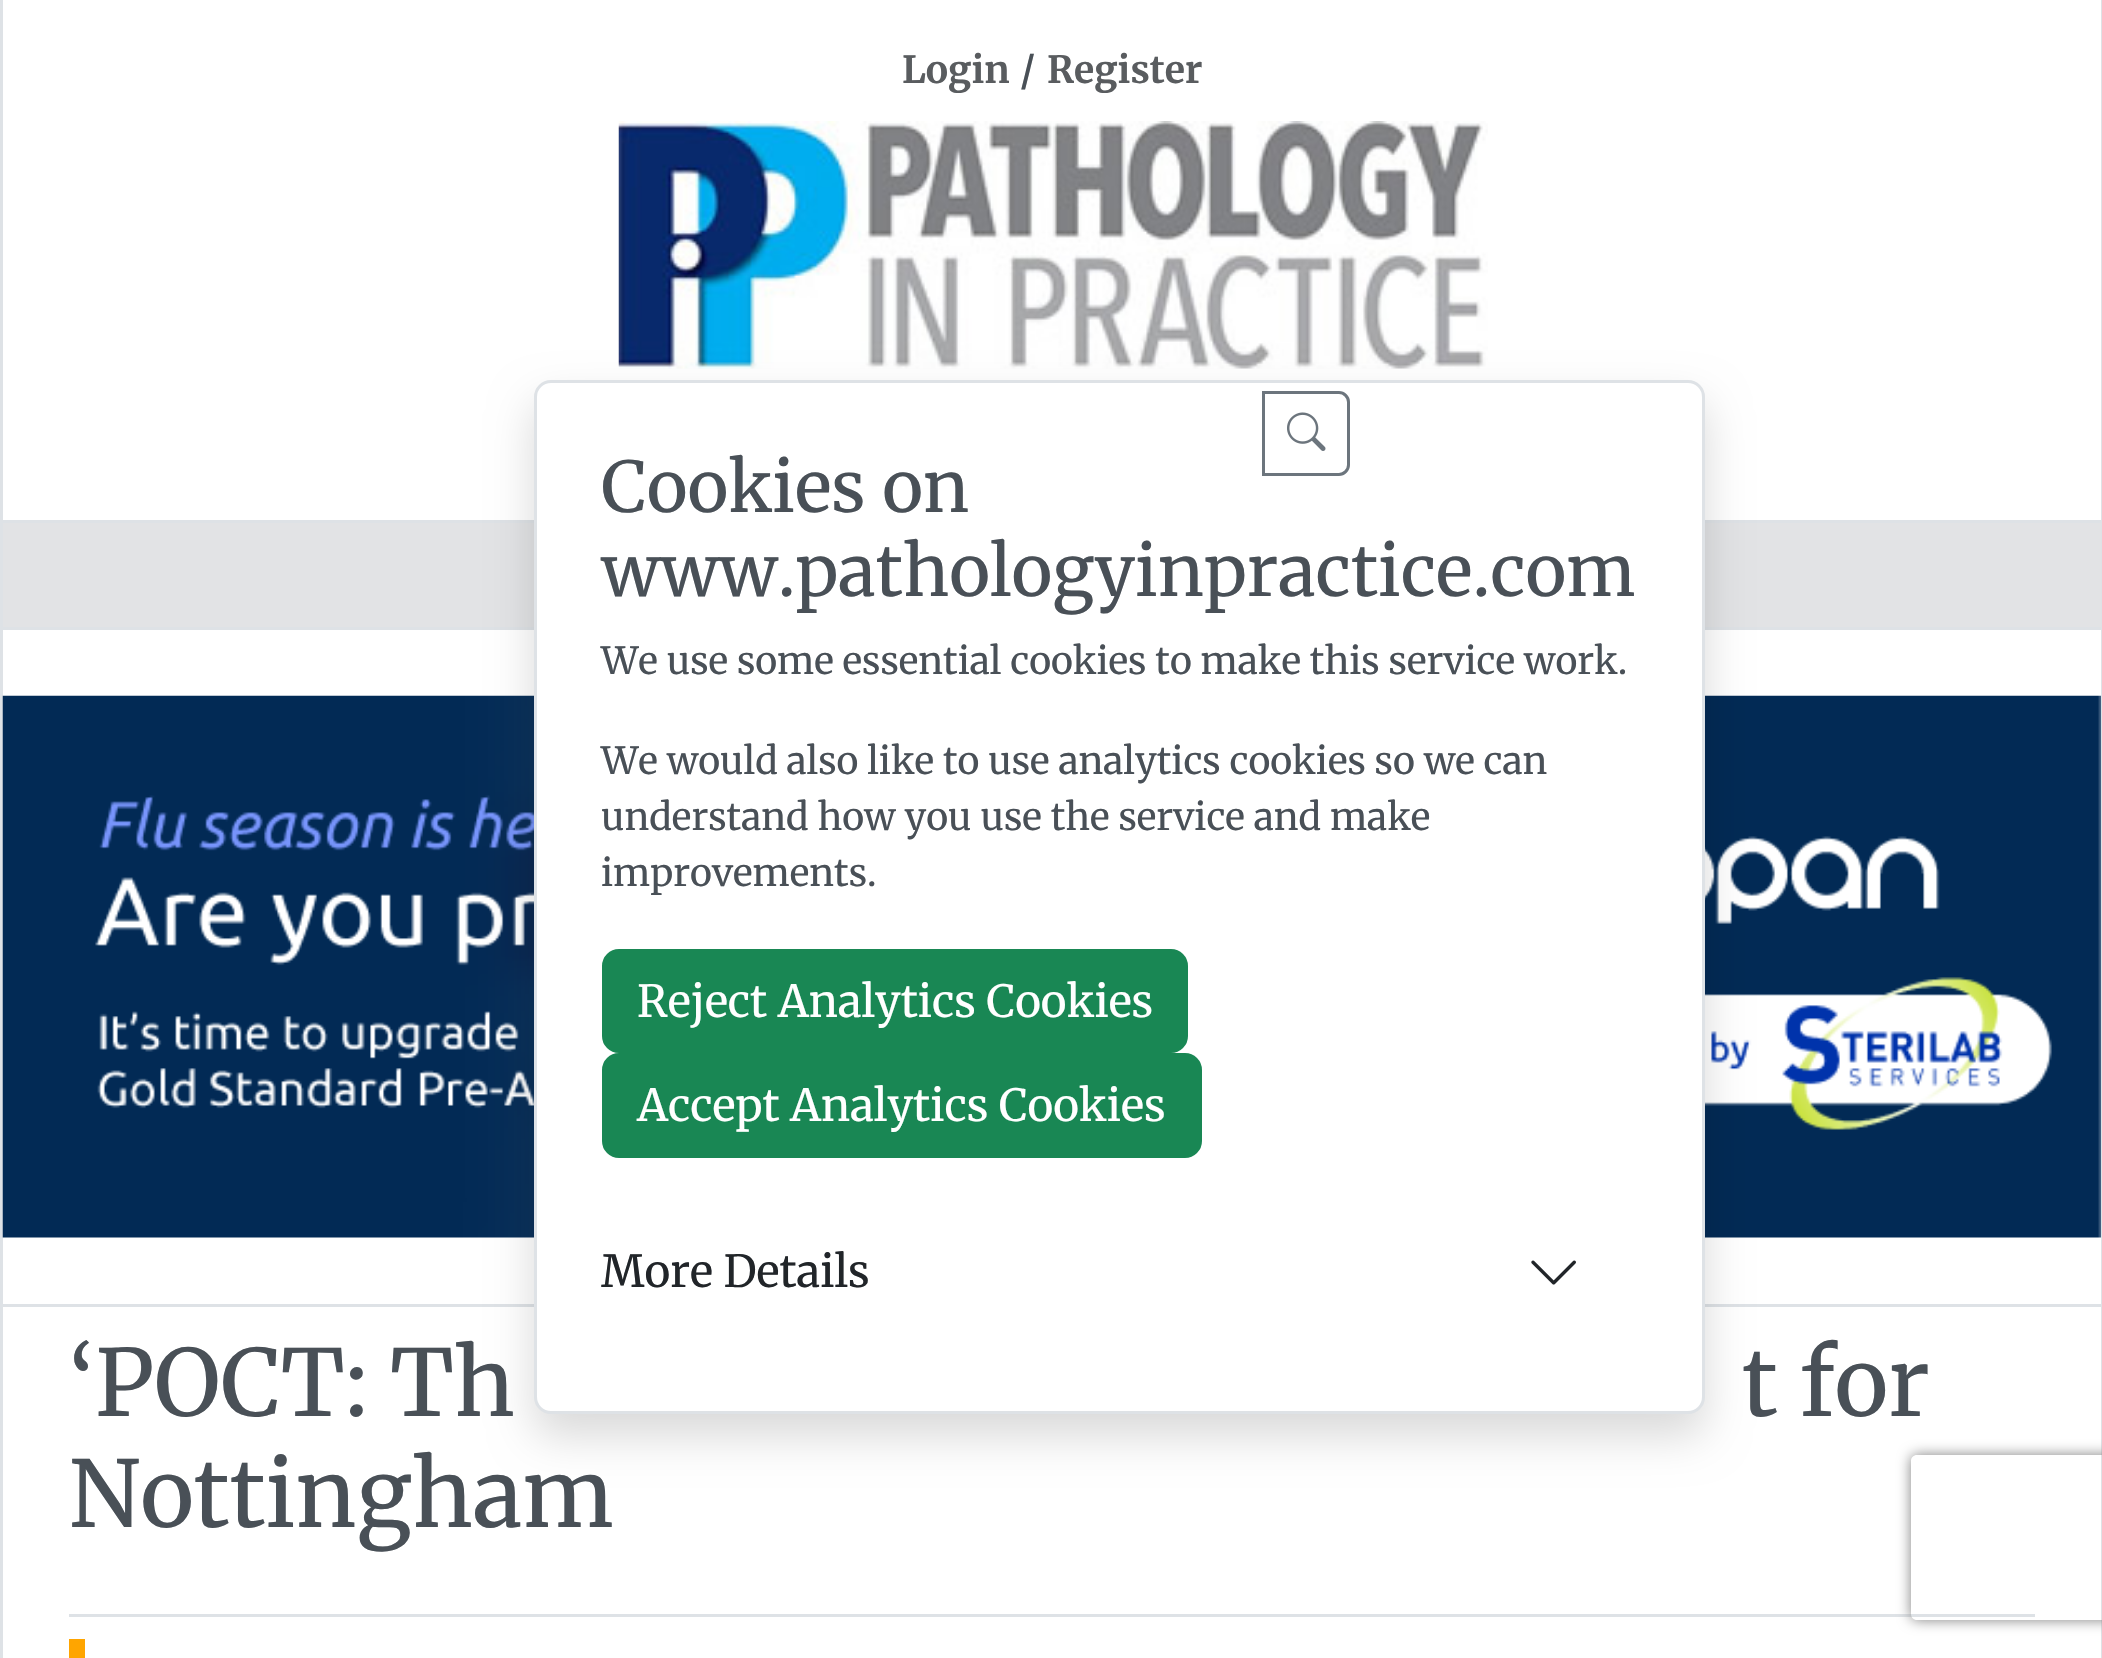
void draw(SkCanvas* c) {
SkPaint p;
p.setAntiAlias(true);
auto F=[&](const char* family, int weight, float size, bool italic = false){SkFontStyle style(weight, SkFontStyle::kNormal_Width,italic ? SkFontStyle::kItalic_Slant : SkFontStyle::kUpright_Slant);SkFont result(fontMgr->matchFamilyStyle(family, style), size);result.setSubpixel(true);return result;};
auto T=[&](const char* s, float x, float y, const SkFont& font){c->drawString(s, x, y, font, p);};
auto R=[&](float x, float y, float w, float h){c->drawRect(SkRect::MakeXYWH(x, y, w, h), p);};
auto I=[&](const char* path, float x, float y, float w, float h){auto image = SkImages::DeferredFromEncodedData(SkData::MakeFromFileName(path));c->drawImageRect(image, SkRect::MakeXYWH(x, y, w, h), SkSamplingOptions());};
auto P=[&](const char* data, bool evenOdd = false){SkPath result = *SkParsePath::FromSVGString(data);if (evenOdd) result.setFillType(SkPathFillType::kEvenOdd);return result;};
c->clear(0xffffffff);
p.setColor(0xffdee2e6);
R(2101,0,1,1658);
R(0,0,3,1658);
R(3,520,2098,3);
auto f1 = F("Merriweather",700,37.4);
p.setColor(0xff595c5f);
T("Login",902,83,f1);
p.setColor(0xff495057);
T("/",1020,83,f1);
p.setColor(0xff595c5f);
T("Register",1047,83,f1);
I("1.png",618,121,870,248);
p.setColor(0xffe2e3e5);
R(3,523,2098,104);
p.setColor(0xffdee2e6);
R(3,627,2098,3);
R(3,1304,2098,3);
I("3.png",2,695,2099,543);
p.setColor(0x26000000);
p.setMaskFilter(SkMaskFilter::MakeBlur(kNormal_SkBlurStyle, 22));
c->drawRoundRect(SkRect::MakeXYWH(534,402,1171,1034),17,17,p);
p.setMaskFilter(nullptr);
p.setColor(0xffffffff);
c->drawRoundRect(SkRect::MakeXYWH(535.5,381.5,1168,1031),15.5,15.5,p);
p.setStroke(true);
p.setStrokeWidth(3);
p.setColor(0xffdee2e6);
c->drawRoundRect(SkRect::MakeXYWH(535.5,381.5,1168,1031),15.5,15.5,p);
p.setColor(0xff6c757d);
c->drawPath(P("M1263.5 392.5h75.5c5 0 9.5 4.5 9.5 9.5v63c0 5-4.5 9.5-9.5 9.5h-75.5z"),p);
I("2.png",1287,412,39,39);
auto f2 = F("Merriweather",400,92);
p.setStroke(false);
p.setColor(0xff495057);
T("‘POCT: Th",69,1416,f2);
T("t for",1742,1416,f2);
T("Nottingham",69,1527,f2);
p.setColor(0xffdee2e6);
R(69,1614,1966,3);
p.setColor(0xffffa500);
R(69,1639,16,19);
auto f3 = F("Merriweather",400,69.8);
p.setColor(0xff495057);
T("Cookies on",601,512,f3);
T("www.pathologyinpractice.com",601,596,f3);
auto f4 = F("Merriweather",400,37.4);
T("We use some essential cookies to make this service work.",601,674,f4);
T("We would also like to use analytics cookies so we can",601,774,f4);
T("understand how you use the service and make",601,830,f4);
T("improvements.",601,886,f4);
p.setColor(0xff198754);
c->drawRoundRect(SkRect::MakeXYWH(603.5,950.5,583,101),15.5,15.5,p);
p.setStroke(true);
c->drawRoundRect(SkRect::MakeXYWH(603.5,950.5,583,101),15.5,15.5,p);
auto f5 = F("Merriweather",400,44);
p.setStroke(false);
p.setColor(0xffffffff);
T("Reject Analytics Cookies",637,1017,f5);
p.setColor(0xff198754);
c->drawRoundRect(SkRect::MakeXYWH(603.5,1054.5,597,102),15.5,15.5,p);
p.setStroke(true);
c->drawRoundRect(SkRect::MakeXYWH(603.5,1054.5,597,102),15.5,15.5,p);
p.setStroke(false);
p.setColor(0xffffffff);
T("Accept Analytics Cookies",637,1121,f5);
p.setColor(0xff212529);
T("More Details",601,1287,f5);
I("4.png",1531,1260,45,25);
c->save();
c->clipPath(P("M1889 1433h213v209h-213zm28 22h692c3.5 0 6 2.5 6 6v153c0 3.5-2.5 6-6 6h-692c-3.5 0-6-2.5-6-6v-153c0-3.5 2.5-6 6-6z",true),true);
p.setColor(0xff808080);
p.setMaskFilter(SkMaskFilter::MakeBlur(kNormal_SkBlurStyle, 7));
c->drawRoundRect(SkRect::MakeXYWH(1911,1455,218,165),6,6,p);
p.setMaskFilter(nullptr);
c->restore();
}
